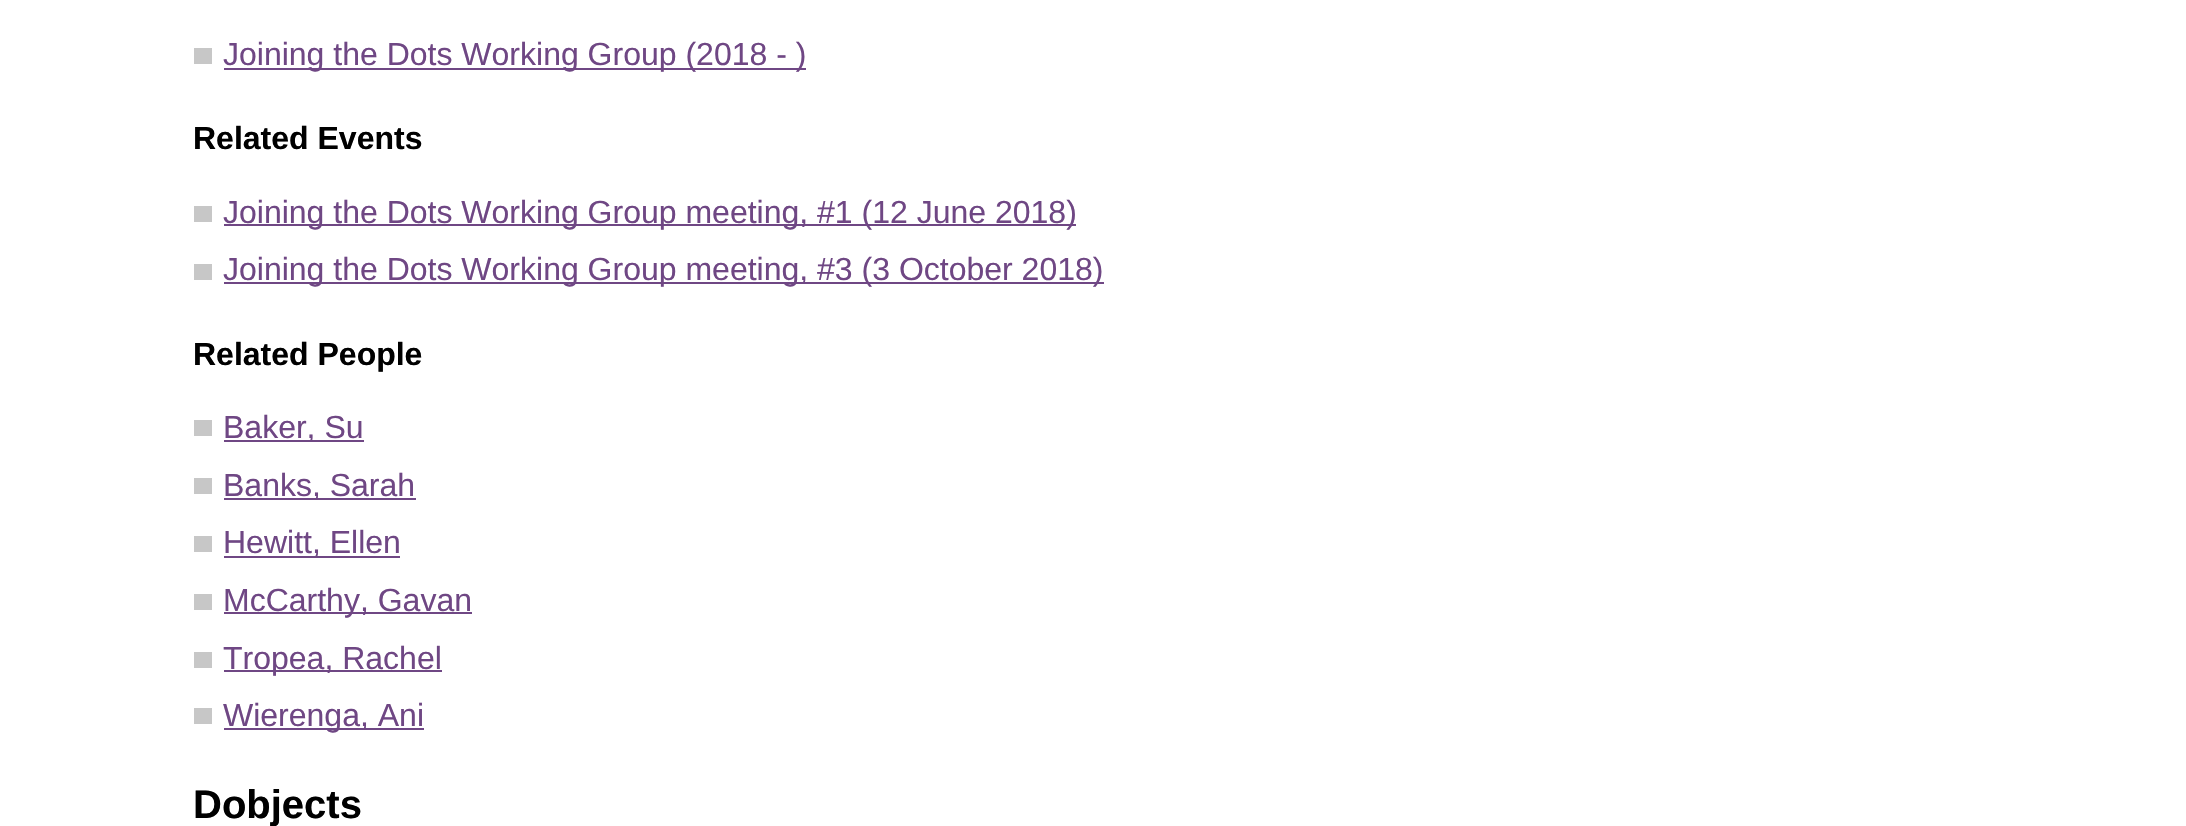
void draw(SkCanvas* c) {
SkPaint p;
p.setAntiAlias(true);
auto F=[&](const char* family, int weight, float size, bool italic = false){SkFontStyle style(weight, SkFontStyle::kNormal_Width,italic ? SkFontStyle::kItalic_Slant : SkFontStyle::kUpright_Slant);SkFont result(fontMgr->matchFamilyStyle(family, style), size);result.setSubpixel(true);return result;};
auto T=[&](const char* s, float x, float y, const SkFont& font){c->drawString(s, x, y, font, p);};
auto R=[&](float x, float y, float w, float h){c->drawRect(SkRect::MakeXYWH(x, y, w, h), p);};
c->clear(0xffffffff);
p.setColor(0xffc7c7c7);
R(194,48,18,16);
p.setColor(0xff6f4784);
R(224,68,582,2);
auto f1 = F("Liberation Sans",400,32);
T("Joining the Dots Working Group (2018 - )",223,65,f1);
auto f2 = F("Liberation Sans",700,32);
p.setColor(0xff000000);
T("Related Events",193,149,f2);
p.setColor(0xffc7c7c7);
R(194,206,18,16);
p.setColor(0xff6f4784);
R(224,224,852,2);
T("Joining the Dots Working Group meeting, #1 (12 June 2018)",223,223,f1);
p.setColor(0xffc7c7c7);
R(194,264,18,16);
p.setColor(0xff6f4784);
R(224,282,880,2);
T("Joining the Dots Working Group meeting, #3 (3 October 2018)",223,280,f1);
p.setColor(0xff000000);
T("Related People",193,365,f2);
p.setColor(0xffc7c7c7);
R(194,420,18,16);
p.setColor(0xff6f4784);
R(224,440,140,2);
T("Baker, Su",223,438,f1);
p.setColor(0xffc7c7c7);
R(194,478,18,16);
p.setColor(0xff6f4784);
R(224,498,192,2);
T("Banks, Sarah",223,496,f1);
p.setColor(0xffc7c7c7);
R(194,536,18,16);
p.setColor(0xff6f4784);
R(224,556,176,2);
T("Hewitt, Ellen",223,553,f1);
p.setColor(0xffc7c7c7);
R(194,594,18,16);
p.setColor(0xff6f4784);
R(224,612,248,2);
T("McCarthy, Gavan",223,611,f1);
p.setColor(0xffc7c7c7);
R(194,652,18,16);
p.setColor(0xff6f4784);
R(224,670,218,2);
T("Tropea, Rachel",223,669,f1);
p.setColor(0xffc7c7c7);
R(194,708,18,16);
p.setColor(0xff6f4784);
R(224,728,200,2);
T("Wierenga, Ani",223,726,f1);
auto f3 = F("Liberation Sans",700,40);
p.setColor(0xff000000);
T("Dobjects",193,818,f3);
}
